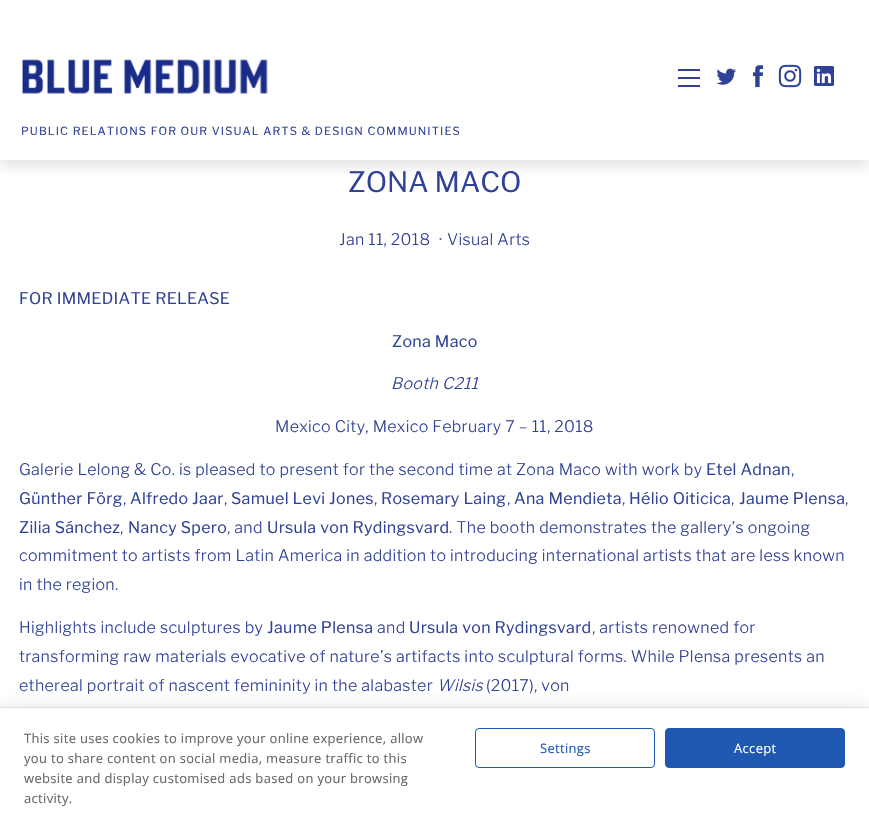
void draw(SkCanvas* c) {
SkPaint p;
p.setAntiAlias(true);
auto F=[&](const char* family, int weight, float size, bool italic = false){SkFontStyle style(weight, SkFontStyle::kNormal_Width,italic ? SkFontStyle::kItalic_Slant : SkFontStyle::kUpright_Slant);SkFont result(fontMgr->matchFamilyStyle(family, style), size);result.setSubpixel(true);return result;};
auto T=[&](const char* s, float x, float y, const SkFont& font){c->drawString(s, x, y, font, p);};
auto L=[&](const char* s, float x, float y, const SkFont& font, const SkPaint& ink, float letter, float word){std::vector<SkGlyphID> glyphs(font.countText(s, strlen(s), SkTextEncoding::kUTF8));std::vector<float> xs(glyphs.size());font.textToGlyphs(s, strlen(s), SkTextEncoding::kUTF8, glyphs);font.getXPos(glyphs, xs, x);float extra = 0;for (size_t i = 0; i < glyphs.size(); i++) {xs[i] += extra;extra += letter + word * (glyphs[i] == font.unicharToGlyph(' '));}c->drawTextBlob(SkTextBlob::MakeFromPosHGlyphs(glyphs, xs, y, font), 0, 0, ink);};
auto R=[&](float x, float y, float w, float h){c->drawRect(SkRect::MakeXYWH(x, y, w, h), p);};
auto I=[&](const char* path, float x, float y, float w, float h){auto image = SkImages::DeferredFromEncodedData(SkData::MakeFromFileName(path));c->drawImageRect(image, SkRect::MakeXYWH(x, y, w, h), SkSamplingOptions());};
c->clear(0xffffffff);
c->save();
c->clipRect(SkRect::MakeXYWH(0,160,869,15));
p.setColor(0x33646464);
p.setMaskFilter(SkMaskFilter::MakeBlur(kNormal_SkBlurStyle, 7));
c->drawRect(SkRect::MakeXYWH(0,6,869,160),p);
p.setMaskFilter(nullptr);
c->restore();
p.setColor(0xff304296);
R(678,69,22,2);
R(678,77,22,2);
R(678,85,22,2);
I("1.png",716,68,21,17);
I("2.png",752,65,12,23);
I("3.png",778,64,24,24);
I("4.png",814,66,20,20);
I("5.png",22,59,246,35);
auto f1 = F("Libre Franklin",400,11.2);
L("PUBLIC RELATIONS FOR OUR VISUAL ARTS & DESIGN COMMUNITIES",21,135,f1,p,1.12,0);
auto f2 = F("Libre Franklin",400,28);
T("ZONA MACO",348,192,f2);
auto f3 = F("Libre Franklin",300,16);
L("Jan 11, 2018",339,245,f3,p,.32,0);
L("·",439,245,f3,p,.32,0);
L("Visual Arts",447,245,f3,p,.32,0);
auto f4 = F("Libre Franklin",400,16);
L("FOR IMMEDIATE RELEASE",19,304,f4,p,.32,0);
L("Zona Maco",392,347,f4,p,.32,0);
auto f5 = F("Libre Franklin",300,16,true);
L("Booth C211",391,389,f5,p,.32,0);
L("Mexico City, Mexico February 7 – 11, 2018",275,432,f3,p,.32,0);
L("Galerie Lelong & Co. is pleased to present for the second time at Zona Maco with work by",19,475,f3,p,.32,0);
L("Etel Adnan",706,475,f4,p,.32,0);
L(",",791,475,f3,p,.32,0);
L("Günther Förg",19,504,f4,p,.32,0);
L(",",123,504,f3,p,.32,0);
L("Alfredo Jaar",130,504,f4,p,.32,0);
L(",",224,504,f3,p,.32,0);
L("Samuel Levi Jones",231,504,f4,p,.32,0);
L(",",374,504,f3,p,.32,0);
L("Rosemary Laing",381,504,f4,p,.32,0);
L(",",507,504,f3,p,.32,0);
L("Ana Mendieta",514,504,f4,p,.32,0);
L(",",622,504,f3,p,.32,0);
L("Hélio Oiticica",629,504,f4,p,.32,0);
L(",",731,504,f3,p,.32,0);
L("Jaume Plensa",739,504,f4,p,.32,0);
L(",",845,504,f3,p,.32,0);
L("Zilia Sánchez",19,533,f4,p,.32,0);
L(",",120,533,f3,p,.32,0);
L("Nancy Spero",128,533,f4,p,.32,0);
L(", and",227,533,f3,p,.32,0);
L("Ursula von Rydingsvard",267,533,f4,p,.32,0);
L(". The booth demonstrates the gallery’s ongoing",449,533,f3,p,.32,0);
L("commitment to artists from Latin America in addition to introducing international artists that are less known",19,561,f3,p,.32,0);
L("in the region.",19,590,f3,p,.32,0);
L("Highlights include sculptures by",19,633,f3,p,.32,0);
L("Jaume Plensa",267,633,f4,p,.32,0);
L("and",377,633,f3,p,.32,0);
L("Ursula von Rydingsvard",409,633,f4,p,.32,0);
L(", artists renowned for",592,633,f3,p,.32,0);
L("transforming raw materials evocative of nature’s artifacts into sculptural forms. While Plensa presents an",19,662,f3,p,.32,0);
L("ethereal portrait of nascent femininity in the alabaster",19,691,f3,p,.32,0);
L("Wilsis",437,691,f5,p,.32,0);
L("(2017), von",486,691,f3,p,.32,0);
p.setColor(0x4f242f42);
p.setMaskFilter(SkMaskFilter::MakeBlur(kNormal_SkBlurStyle, 10));
c->drawRect(SkRect::MakeXYWH(-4,714,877,108),p);
p.setMaskFilter(nullptr);
p.setStroke(true);
p.setStrokeWidth(1);
p.setColor(0x14242f42);
c->drawRect(SkRect::MakeXYWH(-.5,707.5,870,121),p);
p.setStroke(false);
p.setColor(0xffffffff);
R(0,708,869,120);
auto f6 = F("Open Sans",400,13);
p.setColor(0xff666666);
L("This site uses cookies to improve your online experience, allow",24,743,f6,p,.32,0);
L("you to share content on social media, measure traffic to this",24,763,f6,p,.32,0);
L("website and display customised ads based on your browsing",24,783,f6,p,.32,0);
L("activity.",24,803,f6,p,.32,0);
p.setStroke(true);
p.setColor(0xff1e58b1);
c->drawRoundRect(SkRect::MakeXYWH(475.5,728.5,179,39),3.5,3.5,p);
p.setStroke(false);
L("Settings",540,753,f6,p,.32,0);
c->drawRoundRect(SkRect::MakeXYWH(665.5,728.5,179,39),3.5,3.5,p);
p.setStroke(true);
c->drawRoundRect(SkRect::MakeXYWH(665.5,728.5,179,39),3.5,3.5,p);
p.setStroke(false);
p.setColor(0xffffffff);
L("Accept",734,753,f6,p,.32,0);
}
